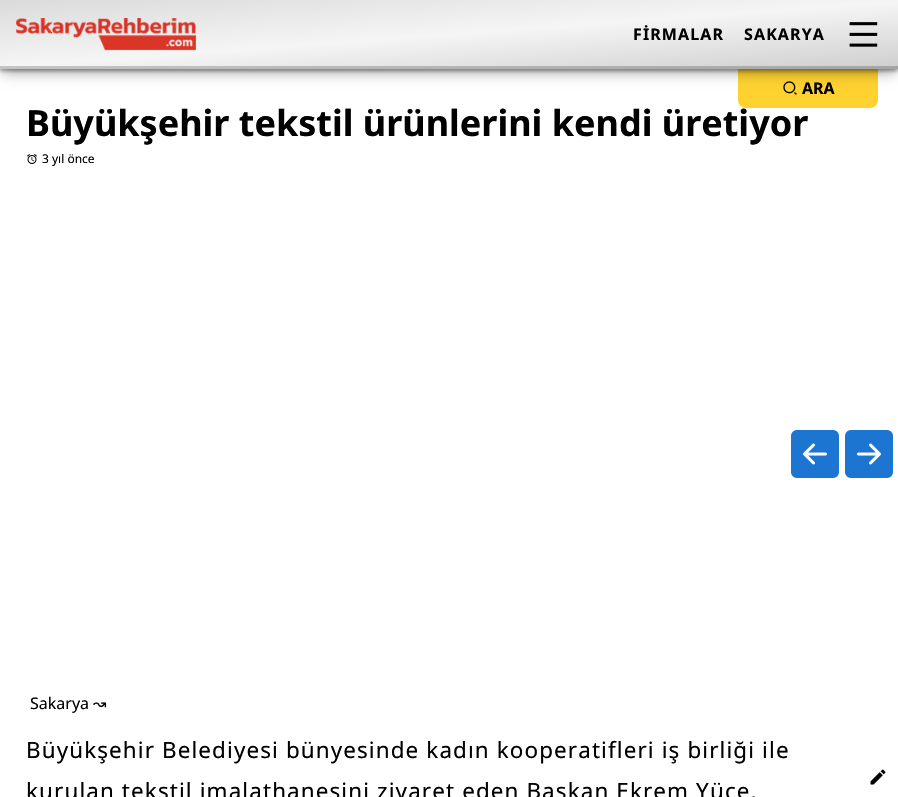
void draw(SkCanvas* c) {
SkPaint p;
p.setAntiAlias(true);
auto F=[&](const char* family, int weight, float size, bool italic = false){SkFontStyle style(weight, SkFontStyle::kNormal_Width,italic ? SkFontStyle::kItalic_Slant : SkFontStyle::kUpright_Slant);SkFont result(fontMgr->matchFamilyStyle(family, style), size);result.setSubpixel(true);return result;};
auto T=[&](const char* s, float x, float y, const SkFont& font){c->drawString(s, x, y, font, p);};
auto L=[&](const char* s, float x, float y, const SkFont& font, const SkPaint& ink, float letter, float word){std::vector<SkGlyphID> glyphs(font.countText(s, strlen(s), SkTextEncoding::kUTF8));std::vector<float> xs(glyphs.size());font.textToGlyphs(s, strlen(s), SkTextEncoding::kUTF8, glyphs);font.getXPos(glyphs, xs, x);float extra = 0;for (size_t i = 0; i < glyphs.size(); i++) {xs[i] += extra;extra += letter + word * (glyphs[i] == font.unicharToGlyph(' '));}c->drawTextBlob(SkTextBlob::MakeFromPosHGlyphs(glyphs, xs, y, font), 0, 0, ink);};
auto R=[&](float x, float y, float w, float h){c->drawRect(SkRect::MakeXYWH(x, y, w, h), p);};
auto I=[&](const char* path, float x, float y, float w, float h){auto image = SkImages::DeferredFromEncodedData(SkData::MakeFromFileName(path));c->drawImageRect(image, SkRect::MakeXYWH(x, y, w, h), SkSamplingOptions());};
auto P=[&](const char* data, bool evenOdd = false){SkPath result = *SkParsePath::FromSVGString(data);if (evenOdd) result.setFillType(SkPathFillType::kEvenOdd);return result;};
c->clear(0xffffffff);
p.setColor(0xffffd230);
c->drawPath(P("M738 68h140v32c0 4.5-3.5 8-8 8h-124c-4.5 0-8-3.5-8-8z"),p);
I("3.png",783,81,14,14);
p.setColor(0x4d000000);
p.setMaskFilter(SkMaskFilter::MakeBlur(kNormal_SkBlurStyle, 6.5));
c->drawRect(SkRect::MakeXYWH(3,10,892,63),p);
p.setMaskFilter(nullptr);
p.setColor(0x66000000);
p.setMaskFilter(SkMaskFilter::MakeBlur(kNormal_SkBlurStyle, 2));
c->drawRect(SkRect::MakeXYWH(0,2,898,69),p);
p.setMaskFilter(nullptr);
{
const SkColor colors[] = {0xffdadada,0xfff5f5f5,0xffcdcdcd};
const float stops[] = {0,.5,1};
const SkPoint ends[] = {{444,-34}, {454,103}};
p.setShader(SkGradientShader::MakeLinear(ends, colors, stops, 3, SkTileMode::kClamp));
p.setAlpha(255);
}
R(0,0,898,66);
{
const SkColor colors[] = {0xffaeaeae,0xffc4c4c4,0xffa4a4a4};
const float stops[] = {0,.5,1};
const SkPoint ends[] = {{444,-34}, {454,103}};
p.setShader(SkGradientShader::MakeLinear(ends, colors, stops, 3, SkTileMode::kClamp));
p.setAlpha(255);
}
R(0,66,898,3);
I("1.png",16,18,180,33);
auto f1 = F("Noto Sans",700,16);
p.setShader(nullptr);
p.setColor(0xff000000);
L("FİRMALAR",633,40,f1,p,1.12,0);
L("SAKARYA",744,40,f1,p,1.12,0);
I("2.png",849,22,29,25);
T("ARA",802,94,f1);
auto f2 = F("Noto Sans",700,36);
T("Büyükşehir tekstil ürünlerini kendi üretiyor",26,136,f2);
I("4.png",27,154,10,10);
auto f3 = F("Noto Sans",400,12);
T("3 yıl önce",42,163,f3);
I("5.png",791,430,48,48);
I("6.png",845,430,48,48);
auto f4 = F("Noto Sans",400,16);
T("Sakarya",30,709,f4);
auto f5 = F("DejaVu Sans",400,16);
T("↝",93,709,f5);
auto f6 = F("Noto Sans",400,22.4);
L("Büyükşehir Belediyesi bünyesinde kadın kooperatifleri iş birliği ile",26,758,f6,p,1.12,0);
L("kurulan tekstil imalathanesini ziyaret eden Başkan Ekrem Yüce,",26,799,f6,p,1.12,0);
I("7.png",870,769,16,16);
}
